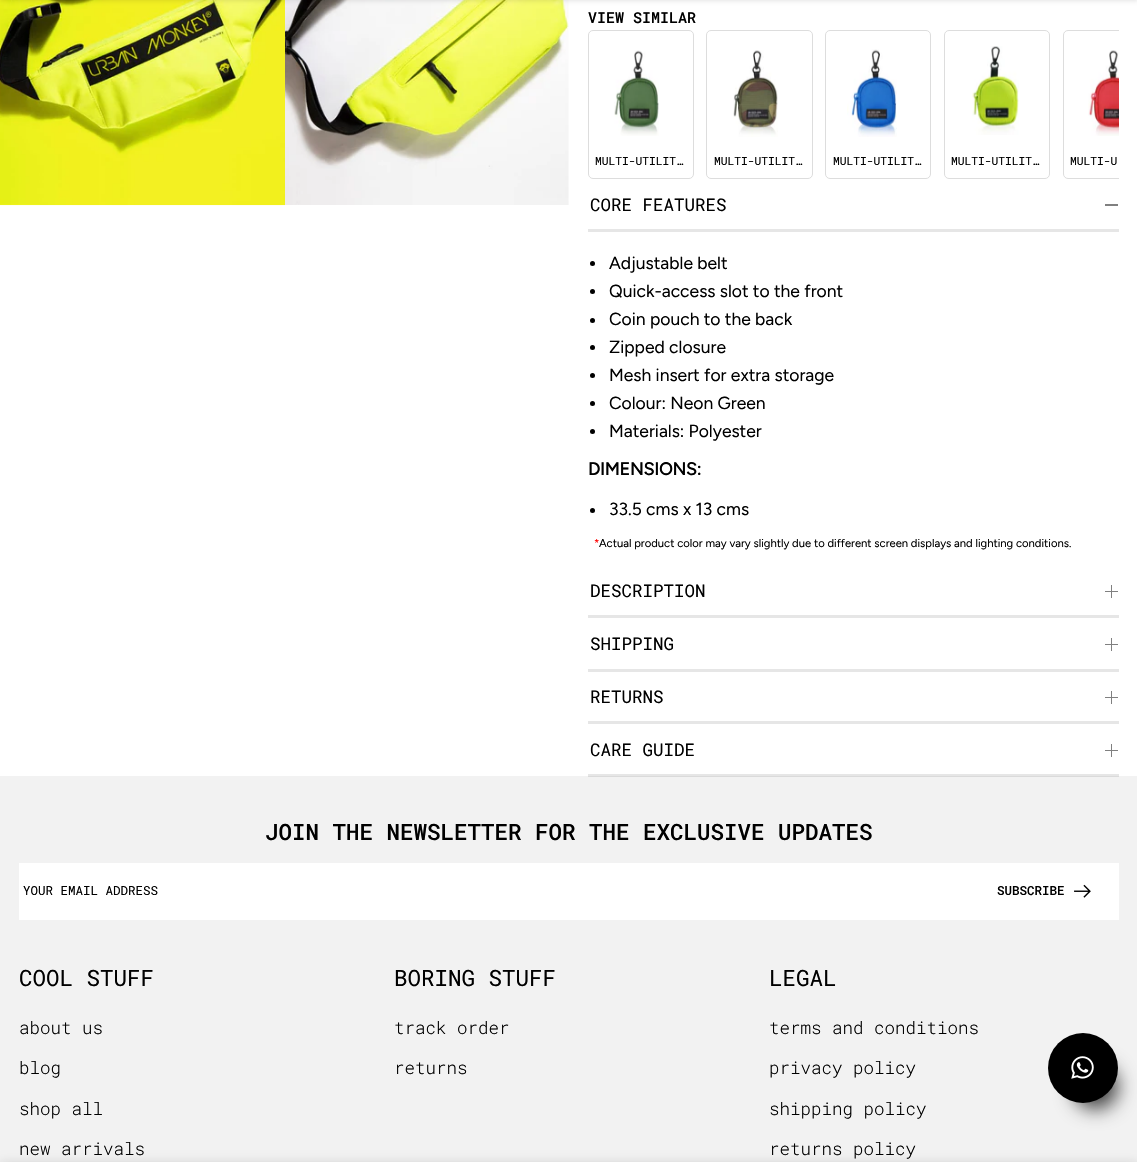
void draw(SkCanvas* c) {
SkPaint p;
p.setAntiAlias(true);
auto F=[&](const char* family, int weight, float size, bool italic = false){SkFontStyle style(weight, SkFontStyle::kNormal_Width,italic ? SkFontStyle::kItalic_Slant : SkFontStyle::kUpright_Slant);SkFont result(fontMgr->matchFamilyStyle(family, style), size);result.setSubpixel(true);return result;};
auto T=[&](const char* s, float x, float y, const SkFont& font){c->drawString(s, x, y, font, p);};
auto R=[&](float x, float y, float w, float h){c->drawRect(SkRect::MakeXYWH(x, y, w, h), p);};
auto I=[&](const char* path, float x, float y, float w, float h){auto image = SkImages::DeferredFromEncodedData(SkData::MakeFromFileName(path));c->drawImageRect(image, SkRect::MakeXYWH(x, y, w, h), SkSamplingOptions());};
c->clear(0xffffffff);
p.setColor(0xffe6e6e6);
R(588,774,531,2);
I("1.png",0,0,285,206);
I("2.png",285,0,284,205);
p.setColor(0x1a000000);
p.setMaskFilter(SkMaskFilter::MakeBlur(kNormal_SkBlurStyle, 2));
c->drawRect(SkRect::MakeXYWH(0,-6,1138,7),p);
p.setMaskFilter(nullptr);
auto f1 = F("Roboto Mono",500,15);
p.setColor(0xff000000);
T("VIEW SIMILAR",588,23,f1);
p.setStroke(true);
p.setStrokeWidth(1);
p.setColor(0xffdddddd);
c->drawRoundRect(SkRect::MakeXYWH(588.5,30.5,105,148),4.5,4.5,p);
I("3.png",614,50,45,86);
auto f2 = F("Roboto Mono",400,11.25);
p.setStroke(false);
p.setColor(0xff000000);
T("MULTI-UTILIT…",595,165,f2);
p.setStroke(true);
p.setColor(0xffdddddd);
c->drawRoundRect(SkRect::MakeXYWH(706.5,30.5,106,148),4.5,4.5,p);
I("4.png",733,50,45,87);
p.setStroke(false);
p.setColor(0xff000000);
T("MULTI-UTILIT…",714,165,f2);
p.setStroke(true);
p.setColor(0xffdddddd);
c->drawRoundRect(SkRect::MakeXYWH(825.5,30.5,105,148),4.5,4.5,p);
I("5.png",847,49,50,88);
p.setStroke(false);
p.setColor(0xff000000);
T("MULTI-UTILIT…",833,165,f2);
p.setStroke(true);
p.setColor(0xffdddddd);
c->drawRoundRect(SkRect::MakeXYWH(944.5,30.5,105,148),4.5,4.5,p);
I("6.png",972,46,47,89);
p.setStroke(false);
p.setColor(0xff000000);
T("MULTI-UTILIT…",951,165,f2);
c->save();
c->clipRect(SkRect::MakeXYWH(588,30,531,149));
p.setStroke(true);
p.setColor(0xffdddddd);
c->drawRoundRect(SkRect::MakeXYWH(1063.5,30.5,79,148),4.5,4.5,p);
c->restore();
I("7.png",1088,50,31,86);
p.setStroke(false);
p.setColor(0xff000000);
T("MULTI-U",1070,165,f2);
p.setColor(0xffe6e6e6);
R(588,229,531,3);
auto f3 = F("Roboto Mono",400,17.5);
p.setColor(0xff000000);
T("CORE FEATURES",590,211,f3);
p.setColor(0xff808080);
R(1105,204,13,2);
p.setColor(0xff000000);
c->drawCircle(592.5,263.5,2.5,p);
auto f4 = F("Figtree",400,17.5);
T("Adjustable belt",609,269,f4);
c->drawCircle(592.5,291.5,2.5,p);
T("Quick-access slot to the front",609,297,f4);
c->drawCircle(592.5,320.5,2.5,p);
T("Coin pouch to the back",609,325,f4);
c->drawCircle(592.5,347.5,2.5,p);
T("Zipped closure",609,353,f4);
c->drawCircle(592.5,375.5,2.5,p);
T("Mesh insert for extra storage",609,381,f4);
c->drawCircle(592.5,403.5,2.5,p);
T("Colour: Neon Green",609,409,f4);
c->drawCircle(592.5,431.5,2.5,p);
T("Materials: Polyester",609,437,f4);
auto f5 = F("Figtree",700,17.5);
T("DIMENSIONS:",588,475,f5);
c->drawCircle(592.5,510.5,2.5,p);
T("33.5 cms x 13 cms",609,515,f4);
auto f6 = F("Figtree",400,11.25);
p.setColor(0xffff0000);
T("*",594,547,f6);
p.setColor(0xff000000);
T("Actual product color may vary slightly due to different screen displays and lighting conditions.",599,547,f6);
p.setColor(0xffe6e6e6);
R(588,615,531,3);
p.setColor(0xff000000);
T("DESCRIPTION",590,597,f3);
p.setColor(0xff808080);
R(1111,585,1,13);
R(1105,591,13,1);
p.setColor(0xffe6e6e6);
R(588,669,531,3);
p.setColor(0xff000000);
T("SHIPPING",590,650,f3);
p.setColor(0xff808080);
R(1111,638,1,13);
R(1105,644,13,1);
p.setColor(0xffe6e6e6);
R(588,721,531,3);
p.setColor(0xff000000);
T("RETURNS",590,703,f3);
p.setColor(0xff808080);
R(1111,691,1,13);
R(1105,697,13,1);
p.setColor(0xff000000);
T("CARE GUIDE",590,756,f3);
p.setColor(0xff808080);
R(1111,744,1,13);
R(1105,750,13,1);
p.setColor(0xfff2f2f2);
R(0,776,1137,386);
p.setColor(0xffdadada);
R(588,776,531,1);
auto f7 = F("Roboto Mono",500,22.5);
p.setColor(0xff000000);
T("JOIN THE NEWSLETTER FOR THE EXCLUSIVE UPDATES",265,840,f7);
p.setColor(0xffffffff);
R(19,863,1100,57);
auto f8 = F("Roboto Mono",400,12.5);
p.setColor(0xff000000);
T("YOUR EMAIL ADDRESS",23,895,f8);
auto f9 = F("Roboto Mono",500,12.5);
T("SUBSCRIBE",997,895,f9);
I("8.png",1074,884,17,14);
auto f10 = F("Roboto Mono",400,22.5);
T("COOL STUFF",19,986,f10);
auto f11 = F("Roboto Mono",300,17.5);
T("about us",19,1034,f11);
T("blog",19,1074,f11);
T("shop all",19,1115,f11);
T("new arrivals",19,1155,f11);
T("BORING STUFF",394,986,f10);
T("track order",394,1034,f11);
T("returns",394,1074,f11);
T("LEGAL",769,986,f10);
T("terms and conditions",769,1034,f11);
T("privacy policy",769,1074,f11);
T("shipping policy",769,1115,f11);
T("returns policy",769,1155,f11);
p.setColor(0xbf000000);
p.setMaskFilter(SkMaskFilter::MakeBlur(kNormal_SkBlurStyle, 9.5));
c->drawRoundRect(SkRect::MakeXYWH(1073,1064,45,45),22.5,22.5,p);
p.setMaskFilter(nullptr);
p.setColor(0xff000000);
c->drawCircle(1083,1068,35,p);
I("9.png",1071,1056,23,23);
p.setColor(0x24000000);
p.setMaskFilter(SkMaskFilter::MakeBlur(kNormal_SkBlurStyle, 5.5));
c->drawRect(SkRect::MakeXYWH(0,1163,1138,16),p);
p.setMaskFilter(nullptr);
}
